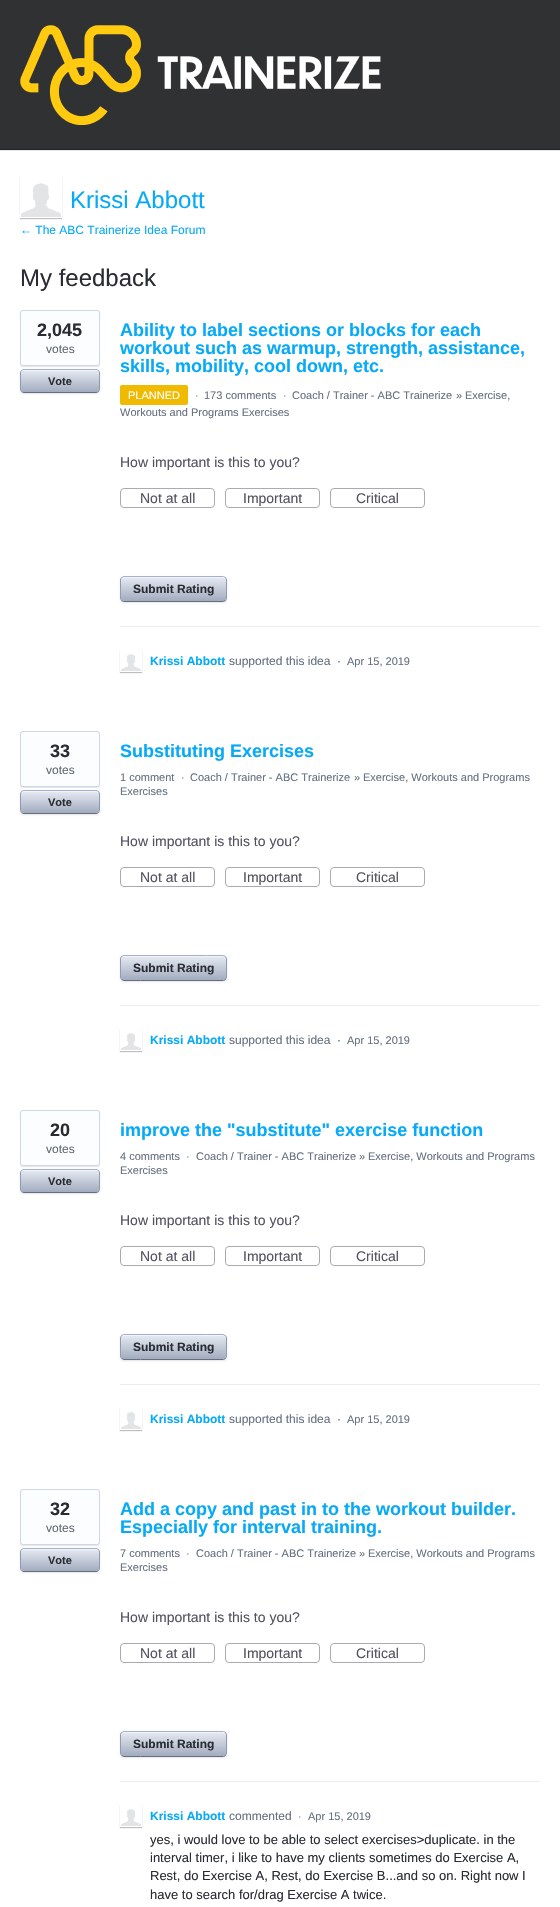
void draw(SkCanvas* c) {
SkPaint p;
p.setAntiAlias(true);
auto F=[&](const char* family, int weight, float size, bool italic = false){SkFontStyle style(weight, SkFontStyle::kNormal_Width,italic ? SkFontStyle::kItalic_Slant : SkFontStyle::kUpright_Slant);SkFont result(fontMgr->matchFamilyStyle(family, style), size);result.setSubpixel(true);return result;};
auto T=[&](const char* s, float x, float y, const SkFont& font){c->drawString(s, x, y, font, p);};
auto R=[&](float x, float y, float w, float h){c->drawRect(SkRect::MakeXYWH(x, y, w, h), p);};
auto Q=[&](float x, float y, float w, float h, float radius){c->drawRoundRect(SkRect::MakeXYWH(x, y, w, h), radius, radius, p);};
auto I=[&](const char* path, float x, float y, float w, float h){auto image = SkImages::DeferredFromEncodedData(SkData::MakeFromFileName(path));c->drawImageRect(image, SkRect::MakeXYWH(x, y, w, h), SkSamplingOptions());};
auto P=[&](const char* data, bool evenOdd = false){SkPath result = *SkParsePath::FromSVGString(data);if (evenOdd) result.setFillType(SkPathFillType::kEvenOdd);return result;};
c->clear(0xffffffff);
p.setColor(0xff303133);
R(0,0,560,149);
p.setColor(0xff242526);
R(0,149,560,1);
I("1.png",20,25,361,100);
p.setColor(0xffe3e8f2);
R(0,150,560,1);
c->save();
c->clipPath(P("M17 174h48v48h-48zm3 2h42v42h-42z",true),true);
p.setColor(0x40000000);
p.setMaskFilter(SkMaskFilter::MakeBlur(kNormal_SkBlurStyle, .5));
c->drawRect(SkRect::MakeXYWH(20,177,42,42),p);
p.setMaskFilter(nullptr);
c->restore();
I("2.png",21,183,40,34);
auto f1 = F("Liberation Sans",400,24);
p.setColor(0xff06aaf6);
T("Krissi Abbott",70,208,f1);
auto f2 = F("Liberation Sans",400,12);
T("← The ABC Trainerize Idea Forum",20,234,f2);
p.setColor(0xff292c33);
T("My feedback",20,286,f1);
p.setColor(0x1a000000);
p.setMaskFilter(SkMaskFilter::MakeBlur(kNormal_SkBlurStyle, .5));
c->drawRoundRect(SkRect::MakeXYWH(20,311,80,56),3,3,p);
p.setMaskFilter(nullptr);
p.setColor(0xfffcfdff);
c->drawRoundRect(SkRect::MakeXYWH(20.5,310.5,79,55),2.5,2.5,p);
p.setStroke(true);
p.setStrokeWidth(1);
p.setColor(0xffcfd7e6);
c->drawRoundRect(SkRect::MakeXYWH(20.5,310.5,79,55),2.5,2.5,p);
auto f3 = F("Liberation Sans",700,18);
p.setStroke(false);
p.setColor(0xff292c33);
T("2,045",37,336,f3);
p.setColor(0xff646b72);
T("votes",46,353,f2);
p.setColor(0x1a000000);
p.setMaskFilter(SkMaskFilter::MakeBlur(kNormal_SkBlurStyle, 1));
c->drawRoundRect(SkRect::MakeXYWH(20,370,80,24),4,4,p);
p.setMaskFilter(nullptr);
{
const SkColor colors[] = {0xffe6eaf2,0xffa2acbf};
const float stops[] = {0,1};
const SkPoint ends[] = {{21,370}, {21,392}};
p.setShader(SkGradientShader::MakeLinear(ends, colors, stops, 2, SkTileMode::kClamp));
p.setAlpha(255);
}
Q(21,370,78,22,3);
p.setShader(nullptr);
p.setColor(0x80ffffff);
c->drawPath(P("M24 371h72c2 0 3 1 3 3c0-7-11-4-15-4h-48c-4 0-15-3-15 4c0-2 1-3 3-3z"),p);
p.setStroke(true);
p.setColor(0xffa3b1cc);
c->drawPath(P("M21.5 370.5c.5-.5 1.5-1 2.5-1h72c1 0 2 .5 2.5 1"),p);
p.setColor(0xff8f9bb3);
c->drawPath(P("M98.5 370.5c.5 .5 1 1.5 1 2.5v16c0 1-.5 2-1 2.5"),p);
p.setColor(0xff666f80);
c->drawPath(P("M98.5 391.5c-.5 .5-1.5 1-2.5 1h-72c-1 0-2-.5-2.5-1"),p);
p.setColor(0xff8f9bb3);
c->drawPath(P("M21.5 391.5c-.5-.5-1-1.5-1-2.5v-16c0-1 .5-2 1-2.5"),p);
auto f4 = F("Liberation Sans",700,11);
p.setStroke(false);
p.setColor(0xff292c33);
T("Vote",48,385,f4);
p.setColor(0xff06aaf6);
T("Ability to label sections or blocks for each",120,336,f3);
T("workout such as warmup, strength, assistance,",120,354,f3);
T("skills, mobility, cool down, etc.",120,372,f3);
p.setColor(0xfff0ba00);
Q(120,385,68,20,2);
auto f5 = F("Liberation Sans",400,11);
p.setColor(0xffffffff);
T("PLANNED",128,399,f5);
p.setColor(0xff646b72);
T("·",195,399,f5);
p.setColor(0xff666f80);
T("173 comments",204,399,f5);
p.setColor(0xff646b72);
T("·",283,399,f5);
p.setColor(0xff666f80);
T("Coach / Trainer - ABC Trainerize",292,399,f5);
p.setColor(0xff646b72);
T("»",456,399,f5);
p.setColor(0xff666f80);
T("Exercise,",465,399,f5);
T("Workouts and Programs Exercises",120,416,f5);
p.setColor(0xffebebf1);
R(120,626,420,1);
auto f6 = F("Liberation Sans",400,14);
p.setColor(0xff525260);
T("How important is this to you?",120,467,f6);
p.setStroke(true);
p.setColor(0xffaaaab2);
c->drawRoundRect(SkRect::MakeXYWH(120.5,488.5,94,19),3.5,3.5,p);
p.setStroke(false);
p.setColor(0xff525260);
T("Not at all",140,503,f6);
p.setStroke(true);
p.setColor(0xffaaaab2);
c->drawRoundRect(SkRect::MakeXYWH(225.5,488.5,94,19),3.5,3.5,p);
p.setStroke(false);
p.setColor(0xff525260);
T("Important",243,503,f6);
p.setStroke(true);
p.setColor(0xffaaaab2);
c->drawRoundRect(SkRect::MakeXYWH(330.5,488.5,94,19),3.5,3.5,p);
p.setStroke(false);
p.setColor(0xff525260);
T("Critical",356,503,f6);
p.setColor(0x1a000000);
p.setMaskFilter(SkMaskFilter::MakeBlur(kNormal_SkBlurStyle, 1));
c->drawRoundRect(SkRect::MakeXYWH(120,577,107,26),4,4,p);
p.setMaskFilter(nullptr);
{
const SkColor colors[] = {0xffe6eaf2,0xffa2acbf};
const float stops[] = {0,1};
const SkPoint ends[] = {{121,577}, {121,601}};
p.setShader(SkGradientShader::MakeLinear(ends, colors, stops, 2, SkTileMode::kClamp));
p.setAlpha(255);
}
Q(121,577,105,24,3);
p.setShader(nullptr);
p.setColor(0x80ffffff);
c->drawPath(P("M124 578h99c2 0 3 1 3 3c0-8-17-4-20-4h-66c-2 0-19-4-19 4c0-2 1-3 3-3z"),p);
p.setStroke(true);
p.setColor(0xffa3b1cc);
c->drawPath(P("M121.5 577.5l2.5-1h99.5l2 1"),p);
p.setColor(0xff8f9bb3);
c->drawPath(P("M225.5 577.5c.5 .5 1 1.5 1 2.5v18c0 1-.5 2-1 2.5"),p);
p.setColor(0xff666f80);
c->drawPath(P("M225.5 600.5l-2.5 1h-99.5l-2-1"),p);
p.setColor(0xff8f9bb3);
c->drawPath(P("M121.5 600.5c-.5-.5-1-1.5-1-2.5v-18c0-1 .5-2 1-2.5"),p);
auto f7 = F("Liberation Sans",700,12);
p.setStroke(false);
p.setColor(0xff292c33);
T("Submit Rating",133,593,f7);
c->save();
c->clipPath(P("M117 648h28v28h-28zm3 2h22v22h-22z",true),true);
p.setColor(0x40000000);
p.setMaskFilter(SkMaskFilter::MakeBlur(kNormal_SkBlurStyle, .5));
c->drawRect(SkRect::MakeXYWH(120,651,22,22),p);
p.setMaskFilter(nullptr);
c->restore();
I("3.png",121,654,20,17);
p.setColor(0xff06aaf6);
T("Krissi Abbott",150,665,f7);
p.setColor(0xff666f80);
T("supported this idea",229,665,f2);
p.setColor(0xff646b72);
T("·",337,665,f2);
p.setColor(0xff666f80);
T("Apr 15, 2019",347,665,f5);
p.setColor(0x1a000000);
p.setMaskFilter(SkMaskFilter::MakeBlur(kNormal_SkBlurStyle, .5));
c->drawRoundRect(SkRect::MakeXYWH(20,732,80,56),3,3,p);
p.setMaskFilter(nullptr);
p.setColor(0xfffcfdff);
c->drawRoundRect(SkRect::MakeXYWH(20.5,731.5,79,55),2.5,2.5,p);
p.setStroke(true);
p.setColor(0xffcfd7e6);
c->drawRoundRect(SkRect::MakeXYWH(20.5,731.5,79,55),2.5,2.5,p);
p.setStroke(false);
p.setColor(0xff292c33);
T("33",50,757,f3);
p.setColor(0xff646b72);
T("votes",46,774,f2);
p.setColor(0x1a000000);
p.setMaskFilter(SkMaskFilter::MakeBlur(kNormal_SkBlurStyle, 1));
c->drawRoundRect(SkRect::MakeXYWH(20,791,80,24),4,4,p);
p.setMaskFilter(nullptr);
{
const SkColor colors[] = {0xffe6eaf2,0xffa2acbf};
const float stops[] = {0,1};
const SkPoint ends[] = {{21,791}, {21,813}};
p.setShader(SkGradientShader::MakeLinear(ends, colors, stops, 2, SkTileMode::kClamp));
p.setAlpha(255);
}
Q(21,791,78,22,3);
p.setShader(nullptr);
p.setColor(0x80ffffff);
c->drawPath(P("M24 792h72c2 0 3 1 3 3c0-7-11-4-15-4h-48c-4 0-15-3-15 4c0-2 1-3 3-3z"),p);
p.setStroke(true);
p.setColor(0xffa3b1cc);
c->drawPath(P("M21.5 791.5c.5-.5 1.5-1 2.5-1h72c1 0 2 .5 2.5 1"),p);
p.setColor(0xff8f9bb3);
c->drawPath(P("M98.5 791.5c.5 .5 1 1.5 1 2.5v16c0 1-.5 2-1 2.5"),p);
p.setColor(0xff666f80);
c->drawPath(P("M98.5 812.5c-.5 .5-1.5 1-2.5 1h-72c-1 0-2-.5-2.5-1"),p);
p.setColor(0xff8f9bb3);
c->drawPath(P("M21.5 812.5c-.5-.5-1-1.5-1-2.5v-16c0-1 .5-2 1-2.5"),p);
p.setStroke(false);
p.setColor(0xff292c33);
T("Vote",48,806,f4);
p.setColor(0xff06aaf6);
T("Substituting Exercises",120,757,f3);
p.setColor(0xff666f80);
T("1 comment",120,781,f5);
p.setColor(0xff646b72);
T("·",181,781,f5);
p.setColor(0xff666f80);
T("Coach / Trainer - ABC Trainerize",190,781,f5);
p.setColor(0xff646b72);
T("»",354,781,f5);
p.setColor(0xff666f80);
T("Exercise, Workouts and Programs",363,781,f5);
T("Exercises",120,795,f5);
p.setColor(0xffebebf1);
R(120,1005,420,1);
p.setColor(0xff525260);
T("How important is this to you?",120,846,f6);
p.setStroke(true);
p.setColor(0xffaaaab2);
c->drawRoundRect(SkRect::MakeXYWH(120.5,867.5,94,19),3.5,3.5,p);
p.setStroke(false);
p.setColor(0xff525260);
T("Not at all",140,882,f6);
p.setStroke(true);
p.setColor(0xffaaaab2);
c->drawRoundRect(SkRect::MakeXYWH(225.5,867.5,94,19),3.5,3.5,p);
p.setStroke(false);
p.setColor(0xff525260);
T("Important",243,882,f6);
p.setStroke(true);
p.setColor(0xffaaaab2);
c->drawRoundRect(SkRect::MakeXYWH(330.5,867.5,94,19),3.5,3.5,p);
p.setStroke(false);
p.setColor(0xff525260);
T("Critical",356,882,f6);
p.setColor(0x1a000000);
p.setMaskFilter(SkMaskFilter::MakeBlur(kNormal_SkBlurStyle, 1));
c->drawRoundRect(SkRect::MakeXYWH(120,956,107,26),4,4,p);
p.setMaskFilter(nullptr);
{
const SkColor colors[] = {0xffe6eaf2,0xffa2acbf};
const float stops[] = {0,1};
const SkPoint ends[] = {{121,956}, {121,980}};
p.setShader(SkGradientShader::MakeLinear(ends, colors, stops, 2, SkTileMode::kClamp));
p.setAlpha(255);
}
Q(121,956,105,24,3);
p.setShader(nullptr);
p.setColor(0x80ffffff);
c->drawPath(P("M124 957h99c2 0 3 1 3 3c0-8-17-4-20-4h-66c-2 0-19-4-19 4c0-2 1-3 3-3z"),p);
p.setStroke(true);
p.setColor(0xffa3b1cc);
c->drawPath(P("M121.5 956.5l2-1h83h16.5l2.5 1"),p);
p.setColor(0xff8f9bb3);
c->drawPath(P("M225.5 956.5c.5 .5 1 1.5 1 2.5v18c0 1-.5 2-1 2.5"),p);
p.setColor(0xff666f80);
c->drawPath(P("M225.5 979.5l-2 1h-83h-16.5l-2.5-1"),p);
p.setColor(0xff8f9bb3);
c->drawPath(P("M121.5 979.5c-.5-.5-1-1.5-1-2.5v-18c0-1 .5-2 1-2.5"),p);
p.setStroke(false);
p.setColor(0xff292c33);
T("Submit Rating",133,972,f7);
c->save();
c->clipPath(P("M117 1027h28v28h-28zm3 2h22v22h-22z",true),true);
p.setColor(0x40000000);
p.setMaskFilter(SkMaskFilter::MakeBlur(kNormal_SkBlurStyle, .5));
c->drawRect(SkRect::MakeXYWH(120,1030,22,22),p);
p.setMaskFilter(nullptr);
c->restore();
I("4.png",121,1033,20,17);
p.setColor(0xff06aaf6);
T("Krissi Abbott",150,1044,f7);
p.setColor(0xff666f80);
T("supported this idea",229,1044,f2);
p.setColor(0xff646b72);
T("·",337,1044,f2);
p.setColor(0xff666f80);
T("Apr 15, 2019",347,1044,f5);
p.setColor(0x1a000000);
p.setMaskFilter(SkMaskFilter::MakeBlur(kNormal_SkBlurStyle, .5));
c->drawRoundRect(SkRect::MakeXYWH(20,1111,80,56),3,3,p);
p.setMaskFilter(nullptr);
p.setColor(0xfffcfdff);
c->drawRoundRect(SkRect::MakeXYWH(20.5,1110.5,79,55),2.5,2.5,p);
p.setStroke(true);
p.setColor(0xffcfd7e6);
c->drawRoundRect(SkRect::MakeXYWH(20.5,1110.5,79,55),2.5,2.5,p);
p.setStroke(false);
p.setColor(0xff292c33);
T("20",50,1136,f3);
p.setColor(0xff646b72);
T("votes",46,1153,f2);
p.setColor(0x1a000000);
p.setMaskFilter(SkMaskFilter::MakeBlur(kNormal_SkBlurStyle, 1));
c->drawRoundRect(SkRect::MakeXYWH(20,1170,80,24),4,4,p);
p.setMaskFilter(nullptr);
{
const SkColor colors[] = {0xffe6eaf2,0xffa2acbf};
const float stops[] = {0,1};
const SkPoint ends[] = {{21,1170}, {21,1192}};
p.setShader(SkGradientShader::MakeLinear(ends, colors, stops, 2, SkTileMode::kClamp));
p.setAlpha(255);
}
Q(21,1170,78,22,3);
p.setShader(nullptr);
p.setColor(0x80ffffff);
c->drawPath(P("M24 1171h72c2 0 3 1 3 3c0-7-11-4-15-4h-48c-4 0-15-3-15 4c0-2 1-3 3-3z"),p);
p.setStroke(true);
p.setColor(0xffa3b1cc);
c->drawPath(P("M21.5 1170.5c.5-.5 1.5-1 2.5-1h72c1 0 2 .5 2.5 1"),p);
p.setColor(0xff8f9bb3);
c->drawPath(P("M98.5 1170.5c.5 .5 1 1.5 1 2.5v16c0 1-.5 2-1 2.5"),p);
p.setColor(0xff666f80);
c->drawPath(P("M98.5 1191.5c-.5 .5-1.5 1-2.5 1h-72c-1 0-2-.5-2.5-1"),p);
p.setColor(0xff8f9bb3);
c->drawPath(P("M21.5 1191.5c-.5-.5-1-1.5-1-2.5v-16c0-1 .5-2 1-2.5"),p);
p.setStroke(false);
p.setColor(0xff292c33);
T("Vote",48,1185,f4);
p.setColor(0xff06aaf6);
T("improve the \"substitute\" exercise function",120,1136,f3);
p.setColor(0xff666f80);
T("4 comments",120,1160,f5);
p.setColor(0xff646b72);
T("·",186,1160,f5);
p.setColor(0xff666f80);
T("Coach / Trainer - ABC Trainerize",196,1160,f5);
p.setColor(0xff646b72);
T("»",359,1160,f5);
p.setColor(0xff666f80);
T("Exercise, Workouts and Programs",368,1160,f5);
T("Exercises",120,1174,f5);
p.setColor(0xffebebf1);
R(120,1384,420,1);
p.setColor(0xff525260);
T("How important is this to you?",120,1225,f6);
p.setStroke(true);
p.setColor(0xffaaaab2);
c->drawRoundRect(SkRect::MakeXYWH(120.5,1246.5,94,19),3.5,3.5,p);
p.setStroke(false);
p.setColor(0xff525260);
T("Not at all",140,1261,f6);
p.setStroke(true);
p.setColor(0xffaaaab2);
c->drawRoundRect(SkRect::MakeXYWH(225.5,1246.5,94,19),3.5,3.5,p);
p.setStroke(false);
p.setColor(0xff525260);
T("Important",243,1261,f6);
p.setStroke(true);
p.setColor(0xffaaaab2);
c->drawRoundRect(SkRect::MakeXYWH(330.5,1246.5,94,19),3.5,3.5,p);
p.setStroke(false);
p.setColor(0xff525260);
T("Critical",356,1261,f6);
p.setColor(0x1a000000);
p.setMaskFilter(SkMaskFilter::MakeBlur(kNormal_SkBlurStyle, 1));
c->drawRoundRect(SkRect::MakeXYWH(120,1335,107,26),4,4,p);
p.setMaskFilter(nullptr);
{
const SkColor colors[] = {0xffe6eaf2,0xffa2acbf};
const float stops[] = {0,1};
const SkPoint ends[] = {{121,1335}, {121,1359}};
p.setShader(SkGradientShader::MakeLinear(ends, colors, stops, 2, SkTileMode::kClamp));
p.setAlpha(255);
}
Q(121,1335,105,24,3);
p.setShader(nullptr);
p.setColor(0x80ffffff);
c->drawPath(P("M124 1336h99c2 0 3 1 3 3c0-8-17-4-20-4h-66c-2 0-19-4-19 4c0-2 1-3 3-3z"),p);
p.setStroke(true);
p.setColor(0xffa3b1cc);
c->drawPath(P("M121.5 1335.5l2-1h83h16.5l2.5 1"),p);
p.setColor(0xff8f9bb3);
c->drawPath(P("M225.5 1335.5c.5 .5 1 1.5 1 2.5v18c0 1-.5 2-1 2.5"),p);
p.setColor(0xff666f80);
c->drawPath(P("M225.5 1358.5l-2 1h-83h-16.5l-2.5-1"),p);
p.setColor(0xff8f9bb3);
c->drawPath(P("M121.5 1358.5c-.5-.5-1-1.5-1-2.5v-18c0-1 .5-2 1-2.5"),p);
p.setStroke(false);
p.setColor(0xff292c33);
T("Submit Rating",133,1351,f7);
c->save();
c->clipPath(P("M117 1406h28v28h-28zm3 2h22v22h-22z",true),true);
p.setColor(0x40000000);
p.setMaskFilter(SkMaskFilter::MakeBlur(kNormal_SkBlurStyle, .5));
c->drawRect(SkRect::MakeXYWH(120,1409,22,22),p);
p.setMaskFilter(nullptr);
c->restore();
I("5.png",121,1412,20,17);
p.setColor(0xff06aaf6);
T("Krissi Abbott",150,1423,f7);
p.setColor(0xff666f80);
T("supported this idea",229,1423,f2);
p.setColor(0xff646b72);
T("·",337,1423,f2);
p.setColor(0xff666f80);
T("Apr 15, 2019",347,1423,f5);
p.setColor(0x1a000000);
p.setMaskFilter(SkMaskFilter::MakeBlur(kNormal_SkBlurStyle, .5));
c->drawRoundRect(SkRect::MakeXYWH(20,1490,80,56),3,3,p);
p.setMaskFilter(nullptr);
p.setColor(0xfffcfdff);
c->drawRoundRect(SkRect::MakeXYWH(20.5,1489.5,79,55),2.5,2.5,p);
p.setStroke(true);
p.setColor(0xffcfd7e6);
c->drawRoundRect(SkRect::MakeXYWH(20.5,1489.5,79,55),2.5,2.5,p);
p.setStroke(false);
p.setColor(0xff292c33);
T("32",50,1515,f3);
p.setColor(0xff646b72);
T("votes",46,1532,f2);
p.setColor(0x1a000000);
p.setMaskFilter(SkMaskFilter::MakeBlur(kNormal_SkBlurStyle, 1));
c->drawRoundRect(SkRect::MakeXYWH(20,1549,80,24),4,4,p);
p.setMaskFilter(nullptr);
{
const SkColor colors[] = {0xffe6eaf2,0xffa2acbf};
const float stops[] = {0,1};
const SkPoint ends[] = {{21,1549}, {21,1571}};
p.setShader(SkGradientShader::MakeLinear(ends, colors, stops, 2, SkTileMode::kClamp));
p.setAlpha(255);
}
Q(21,1549,78,22,3);
p.setShader(nullptr);
p.setColor(0x80ffffff);
c->drawPath(P("M24 1550h72c2 0 3 1 3 3c0-7-11-4-15-4h-48c-4 0-15-3-15 4c0-2 1-3 3-3z"),p);
p.setStroke(true);
p.setColor(0xffa3b1cc);
c->drawPath(P("M21.5 1549.5c.5-.5 1.5-1 2.5-1h72c1 0 2 .5 2.5 1"),p);
p.setColor(0xff8f9bb3);
c->drawPath(P("M98.5 1549.5c.5 .5 1 1.5 1 2.5v16c0 1-.5 2-1 2.5"),p);
p.setColor(0xff666f80);
c->drawPath(P("M98.5 1570.5c-.5 .5-1.5 1-2.5 1h-72c-1 0-2-.5-2.5-1"),p);
p.setColor(0xff8f9bb3);
c->drawPath(P("M21.5 1570.5c-.5-.5-1-1.5-1-2.5v-16c0-1 .5-2 1-2.5"),p);
p.setStroke(false);
p.setColor(0xff292c33);
T("Vote",48,1564,f4);
p.setColor(0xff06aaf6);
T("Add a copy and past in to the workout builder.",120,1515,f3);
T("Especially for interval training.",120,1533,f3);
p.setColor(0xff666f80);
T("7 comments",120,1557,f5);
p.setColor(0xff646b72);
T("·",186,1557,f5);
p.setColor(0xff666f80);
T("Coach / Trainer - ABC Trainerize",196,1557,f5);
p.setColor(0xff646b72);
T("»",359,1557,f5);
p.setColor(0xff666f80);
T("Exercise, Workouts and Programs",368,1557,f5);
T("Exercises",120,1571,f5);
p.setColor(0xffebebf1);
R(120,1781,420,1);
p.setColor(0xff525260);
T("How important is this to you?",120,1622,f6);
p.setStroke(true);
p.setColor(0xffaaaab2);
c->drawRoundRect(SkRect::MakeXYWH(120.5,1643.5,94,19),3.5,3.5,p);
p.setStroke(false);
p.setColor(0xff525260);
T("Not at all",140,1658,f6);
p.setStroke(true);
p.setColor(0xffaaaab2);
c->drawRoundRect(SkRect::MakeXYWH(225.5,1643.5,94,19),3.5,3.5,p);
p.setStroke(false);
p.setColor(0xff525260);
T("Important",243,1658,f6);
p.setStroke(true);
p.setColor(0xffaaaab2);
c->drawRoundRect(SkRect::MakeXYWH(330.5,1643.5,94,19),3.5,3.5,p);
p.setStroke(false);
p.setColor(0xff525260);
T("Critical",356,1658,f6);
p.setColor(0x1a000000);
p.setMaskFilter(SkMaskFilter::MakeBlur(kNormal_SkBlurStyle, 1));
c->drawRoundRect(SkRect::MakeXYWH(120,1732,107,26),4,4,p);
p.setMaskFilter(nullptr);
{
const SkColor colors[] = {0xffe6eaf2,0xffa2acbf};
const float stops[] = {0,1};
const SkPoint ends[] = {{121,1732}, {121,1756}};
p.setShader(SkGradientShader::MakeLinear(ends, colors, stops, 2, SkTileMode::kClamp));
p.setAlpha(255);
}
Q(121,1732,105,24,3);
p.setShader(nullptr);
p.setColor(0x80ffffff);
c->drawPath(P("M124 1733h99c2 0 3 1 3 3c0-8-17-4-20-4h-66c-2 0-19-4-19 4c0-2 1-3 3-3z"),p);
p.setStroke(true);
p.setColor(0xffa3b1cc);
c->drawPath(P("M121.5 1732.5l2.5-1h99.5l2 1"),p);
p.setColor(0xff8f9bb3);
c->drawPath(P("M225.5 1732.5c.5 .5 1 1.5 1 2.5v18c0 1-.5 2-1 2.5"),p);
p.setColor(0xff666f80);
c->drawPath(P("M225.5 1755.5l-2 1h-83h-16.5l-2.5-1"),p);
p.setColor(0xff8f9bb3);
c->drawPath(P("M121.5 1755.5c-.5-.5-1-1.5-1-2.5v-18c0-1 .5-2 1-2.5"),p);
p.setStroke(false);
p.setColor(0xff292c33);
T("Submit Rating",133,1748,f7);
c->save();
c->clipPath(P("M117 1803h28v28h-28zm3 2h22v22h-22z",true),true);
p.setColor(0x40000000);
p.setMaskFilter(SkMaskFilter::MakeBlur(kNormal_SkBlurStyle, .5));
c->drawRect(SkRect::MakeXYWH(120,1806,22,22),p);
p.setMaskFilter(nullptr);
c->restore();
I("5.png",121,1809,20,17);
p.setColor(0xff06aaf6);
T("Krissi Abbott",150,1820,f7);
p.setColor(0xff666f80);
T("commented",229,1820,f2);
p.setColor(0xff646b72);
T("·",298,1820,f5);
p.setColor(0xff666f80);
T("Apr 15, 2019",308,1820,f5);
auto f8 = F("Liberation Sans",400,13);
p.setColor(0xff292c33);
T("yes, i would love to be able to select exercises>duplicate. in the",150,1844,f8);
T("interval timer, i like to have my clients sometimes do Exercise A,",150,1862,f8);
T("Rest, do Exercise A, Rest, do Exercise B...and so on. Right now I",150,1880,f8);
T("have to search for/drag Exercise A twice.",150,1899,f8);
}
